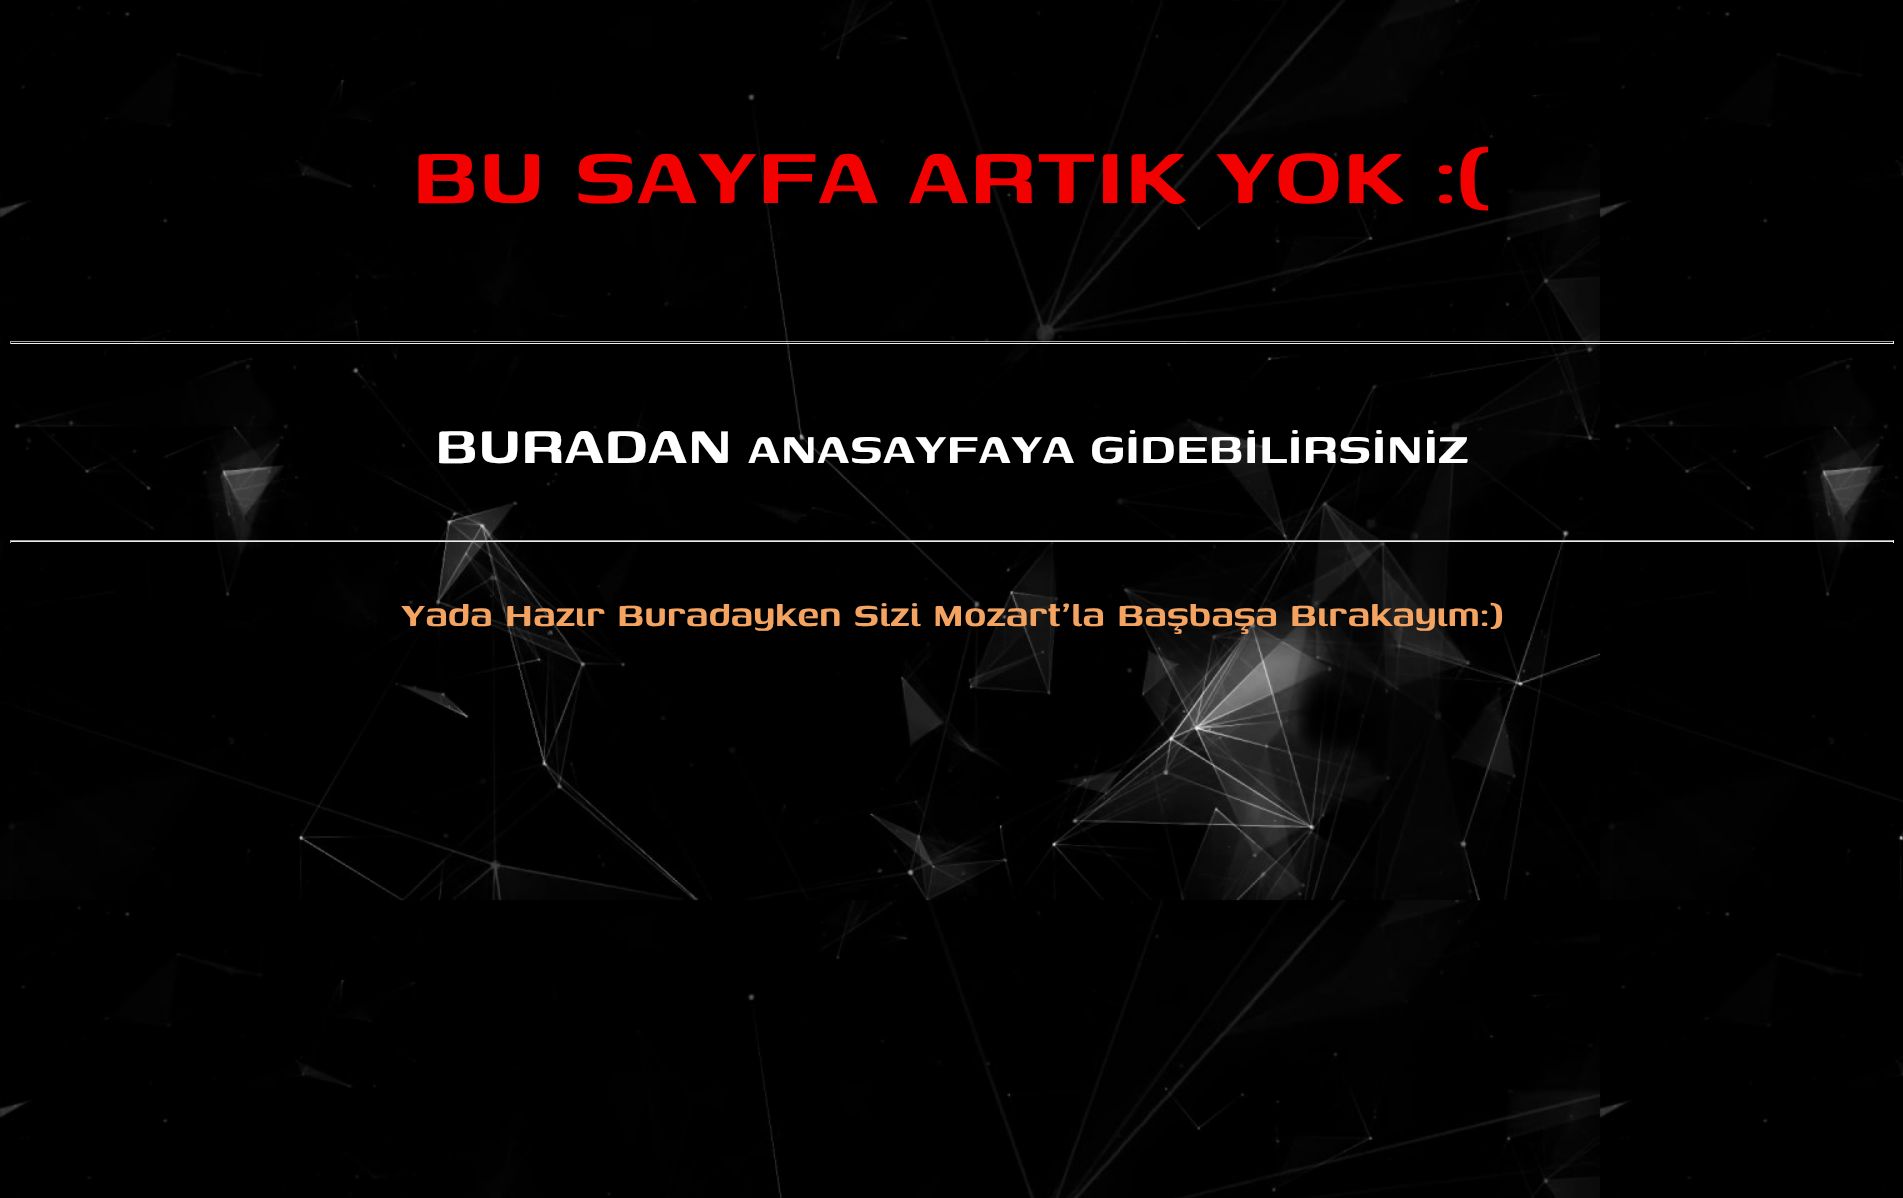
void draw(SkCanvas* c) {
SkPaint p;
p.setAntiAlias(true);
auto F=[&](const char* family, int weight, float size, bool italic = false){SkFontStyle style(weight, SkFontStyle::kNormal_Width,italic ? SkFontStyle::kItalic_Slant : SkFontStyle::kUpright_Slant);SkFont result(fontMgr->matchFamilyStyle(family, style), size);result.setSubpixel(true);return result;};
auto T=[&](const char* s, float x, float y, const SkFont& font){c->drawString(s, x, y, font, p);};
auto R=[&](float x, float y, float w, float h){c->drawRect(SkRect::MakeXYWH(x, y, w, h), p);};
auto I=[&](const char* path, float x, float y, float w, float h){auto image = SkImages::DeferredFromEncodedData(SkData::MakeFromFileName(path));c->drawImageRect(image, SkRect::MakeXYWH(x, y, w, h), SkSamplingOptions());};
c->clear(0xffffffff);
I("1.png",0,0,1903,1198);
auto f1 = F("Genos",100,106.25);
p.setColor(0xfff30000);
T("BU SAYFA ARTIK YOK :(",412,203,f1);
p.setColor(0xff9f9f9f);
R(10,341,1884,1);
p.setColor(0xffeeeeee);
R(1893,341,1,3);
R(10,343,1884,1);
p.setColor(0xff9f9f9f);
R(10,341,1,3);
auto f2 = F("Genos",100,68.75);
p.setColor(0xffffffff);
T("BURADAN",435,463,f2);
auto f3 = F("Genos",100,56.25);
T("ANASAYFAYA GİDEBİLİRSİNİZ",748,463,f3);
p.setColor(0xff9f9f9f);
R(10,540,1884,1);
p.setColor(0xffeeeeee);
R(1893,540,1,3);
R(10,541,1884,1);
p.setColor(0xff9f9f9f);
R(10,540,1,3);
auto f4 = F("Genos",100,43.75);
p.setColor(0xfff4a460);
T("Yada Hazır Buradayken Sizi Mozart'la Başbaşa Bırakayım:)",401,626,f4);
}
